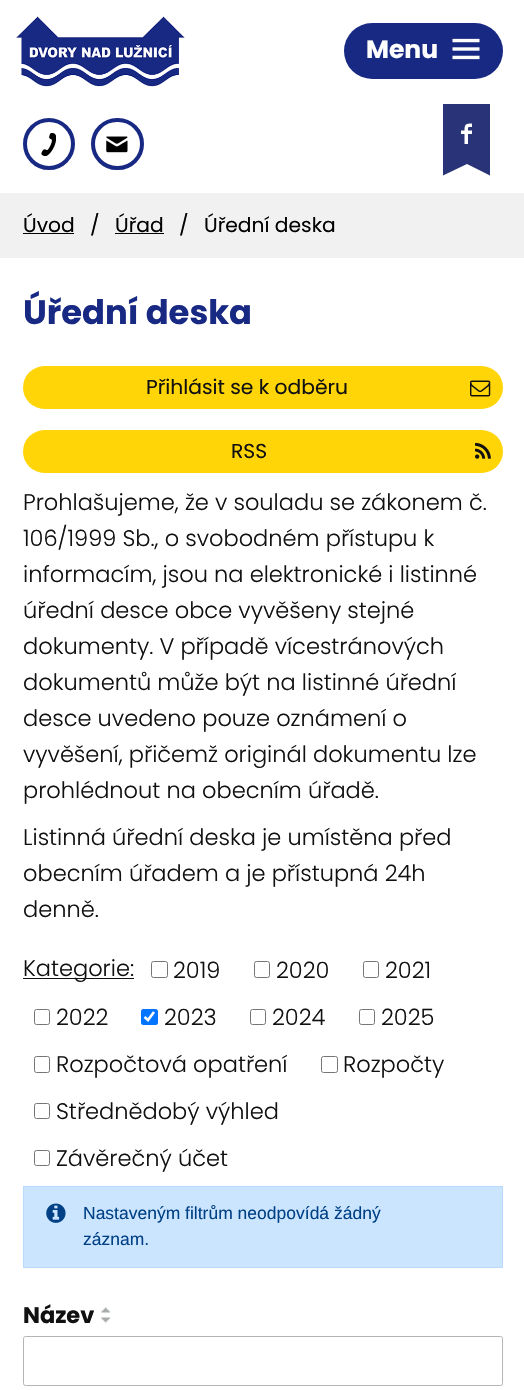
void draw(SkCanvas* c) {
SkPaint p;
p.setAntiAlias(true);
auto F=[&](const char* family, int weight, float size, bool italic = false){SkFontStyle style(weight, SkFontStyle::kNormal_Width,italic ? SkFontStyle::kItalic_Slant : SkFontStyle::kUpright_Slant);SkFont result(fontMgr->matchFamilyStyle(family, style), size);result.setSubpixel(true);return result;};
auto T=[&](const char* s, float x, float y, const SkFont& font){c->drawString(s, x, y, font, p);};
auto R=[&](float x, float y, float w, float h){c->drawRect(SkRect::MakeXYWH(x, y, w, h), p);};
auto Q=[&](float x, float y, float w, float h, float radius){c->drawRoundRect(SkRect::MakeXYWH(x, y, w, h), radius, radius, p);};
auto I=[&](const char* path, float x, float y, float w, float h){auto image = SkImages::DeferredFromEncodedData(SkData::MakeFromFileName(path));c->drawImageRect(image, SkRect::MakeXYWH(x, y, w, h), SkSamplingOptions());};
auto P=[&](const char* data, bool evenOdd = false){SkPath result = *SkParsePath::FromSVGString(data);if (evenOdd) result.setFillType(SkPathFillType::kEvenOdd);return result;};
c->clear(0xffffffff);
I("1.png",16,16,169,71);
p.setStroke(true);
p.setStrokeWidth(4);
p.setColor(0xff182983);
c->drawCircle(49,144,24,p);
I("2.png",41,133,15,23);
c->drawRoundRect(SkRect::MakeXYWH(93,120,49,48),24,24,p);
I("3.png",106,136,22,17);
c->save();
c->clipRect(SkRect::MakeXYWH(443,104,47,72));
p.setStroke(false);
p.setColor(0xff283477);
c->drawPath(P("M442 104v72l25-12l24 12v-72z"),p);
c->restore();
p.setColor(0xffffffff);
c->drawPath(P("M472 127c-4 0-4-.5-4 3.5h4v3.5h-4v10h-3.5v-10h-3.5v-3.5h3.5c0-6.5 1.5-7 7.5-7z"),p);
p.setColor(0xff182983);
Q(344,23,159,56,28);
auto f1 = F("Poppins",700,25);
p.setColor(0xffffffff);
T("Menu",366,58,f1);
I("4.png",452,38,28,22);
p.setColor(0xfff1f1f1);
R(0,193,524,65);
auto f2 = F("Poppins",400,20.25);
p.setColor(0xff020202);
T("Úvod",23,232,f2);
R(23,233,51,1);
T("/",90,232,f2);
T("Úřad",115,232,f2);
R(115,233,49,1);
T("/",179,232,f2);
T("Úřední deska",204,232,f2);
auto f3 = F("Poppins",700,33.75);
p.setColor(0xff182983);
T("Úřední deska",23,324,f3);
p.setColor(0xffffd508);
Q(23,366,480,43,21.5);
p.setColor(0xff111111);
T("Přihlásit se k odběru",146,394,f2);
I("5.png",470,380,21,17);
p.setColor(0xffffd508);
Q(23,430,480,43,21.5);
p.setColor(0xff111111);
T("RSS",231,458,f2);
I("6.png",475,442,16,17);
auto f4 = F("Poppins",300,22.5);
T("Prohlašujeme, že v souladu se zákonem č.",23,510,f4);
T("106/1999 Sb., o svobodném přístupu k",23,546,f4);
T("informacím, jsou na elektronické i listinné",23,582,f4);
T("úřední desce obce vyvěšeny stejné",23,618,f4);
T("dokumenty. V případě vícestránových",23,654,f4);
T("dokumentů může být na listinné úřední",23,690,f4);
T("desce uvedeno pouze oznámení o",23,726,f4);
T("vyvěšení, přičemž originál dokumentu lze",23,762,f4);
T("prohlédnout na obecním úřadě.",23,798,f4);
T("Listinná úřední deska je umístěna před",23,845,f4);
T("obecním úřadem a je přístupná 24h",23,881,f4);
T("denně.",23,917,f4);
R(23,978,111,1);
T("Kategorie:",23,976,f4);
p.setStroke(true);
p.setStrokeWidth(1);
p.setColor(0xff767676);
c->drawRoundRect(SkRect::MakeXYWH(151.5,961.5,16,16),2,2,p);
p.setStroke(false);
p.setColor(0xff111111);
T("2019",173,978,f4);
p.setStroke(true);
p.setColor(0xff767676);
c->drawRoundRect(SkRect::MakeXYWH(254.5,961.5,15,16),2,2,p);
p.setStroke(false);
p.setColor(0xff111111);
T("2020",276,978,f4);
p.setStroke(true);
p.setColor(0xff767676);
c->drawRoundRect(SkRect::MakeXYWH(363.5,961.5,15,16),2,2,p);
p.setStroke(false);
p.setColor(0xff111111);
T("2021",385,978,f4);
p.setStroke(true);
p.setColor(0xff767676);
c->drawRoundRect(SkRect::MakeXYWH(34.5,1009.5,15,15),2,2,p);
p.setStroke(false);
p.setColor(0xff111111);
T("2022",56,1025,f4);
p.setColor(0xff0075ff);
Q(141,1009,17,16,2.5);
p.setStroke(true);
p.setStrokeWidth(2.6);
p.setColor(0xffffffff);
c->drawPath(P("M144.5 1017l3.5 3l6-8"),p);
p.setStroke(false);
p.setColor(0xff111111);
T("2023",164,1025,f4);
p.setStroke(true);
p.setStrokeWidth(1);
p.setColor(0xff767676);
c->drawRoundRect(SkRect::MakeXYWH(250.5,1009.5,15,15),2,2,p);
p.setStroke(false);
p.setColor(0xff111111);
T("2024",272,1025,f4);
p.setStroke(true);
p.setColor(0xff767676);
c->drawRoundRect(SkRect::MakeXYWH(359.5,1009.5,15,15),2,2,p);
p.setStroke(false);
p.setColor(0xff111111);
T("2025",381,1025,f4);
p.setStroke(true);
p.setColor(0xff767676);
c->drawRoundRect(SkRect::MakeXYWH(34.5,1056.5,15,16),2,2,p);
p.setStroke(false);
p.setColor(0xff111111);
T("Rozpočtová opatření",56,1072,f4);
p.setStroke(true);
p.setColor(0xff767676);
c->drawRoundRect(SkRect::MakeXYWH(321.5,1056.5,16,16),2,2,p);
p.setStroke(false);
p.setColor(0xff111111);
T("Rozpočty",343,1072,f4);
p.setStroke(true);
p.setColor(0xff767676);
c->drawRoundRect(SkRect::MakeXYWH(34.5,1103.5,15,15),2,2,p);
p.setStroke(false);
p.setColor(0xff111111);
T("Střednědobý výhled",56,1119,f4);
p.setStroke(true);
p.setColor(0xff767676);
c->drawRoundRect(SkRect::MakeXYWH(34.5,1150.5,15,15),2,2,p);
p.setStroke(false);
p.setColor(0xff111111);
T("Závěrečný účet",56,1166,f4);
p.setColor(0xffcce5ff);
c->drawRect(SkRect::MakeXYWH(23.5,1186.5,479,81),p);
p.setStroke(true);
p.setColor(0xffb8daff);
c->drawRect(SkRect::MakeXYWH(23.5,1186.5,479,81),p);
I("7.png",46,1203,20,20);
auto f5 = F("Liberation Sans",400,17.5);
p.setStroke(false);
p.setColor(0xff004085);
T("Nastaveným filtrům neodpovídá žádný",83,1219,f5);
T("záznam.",83,1245,f5);
auto f6 = F("Poppins",700,22.5);
p.setColor(0xff111111);
T("Název",23,1323,f6);
I("8.png",101,1307,10,6);
I("9.png",101,1317,10,6);
p.setStroke(true);
p.setColor(0xffb5b5b5);
c->drawRoundRect(SkRect::MakeXYWH(23.5,1336.5,479,49),2,2,p);
}
